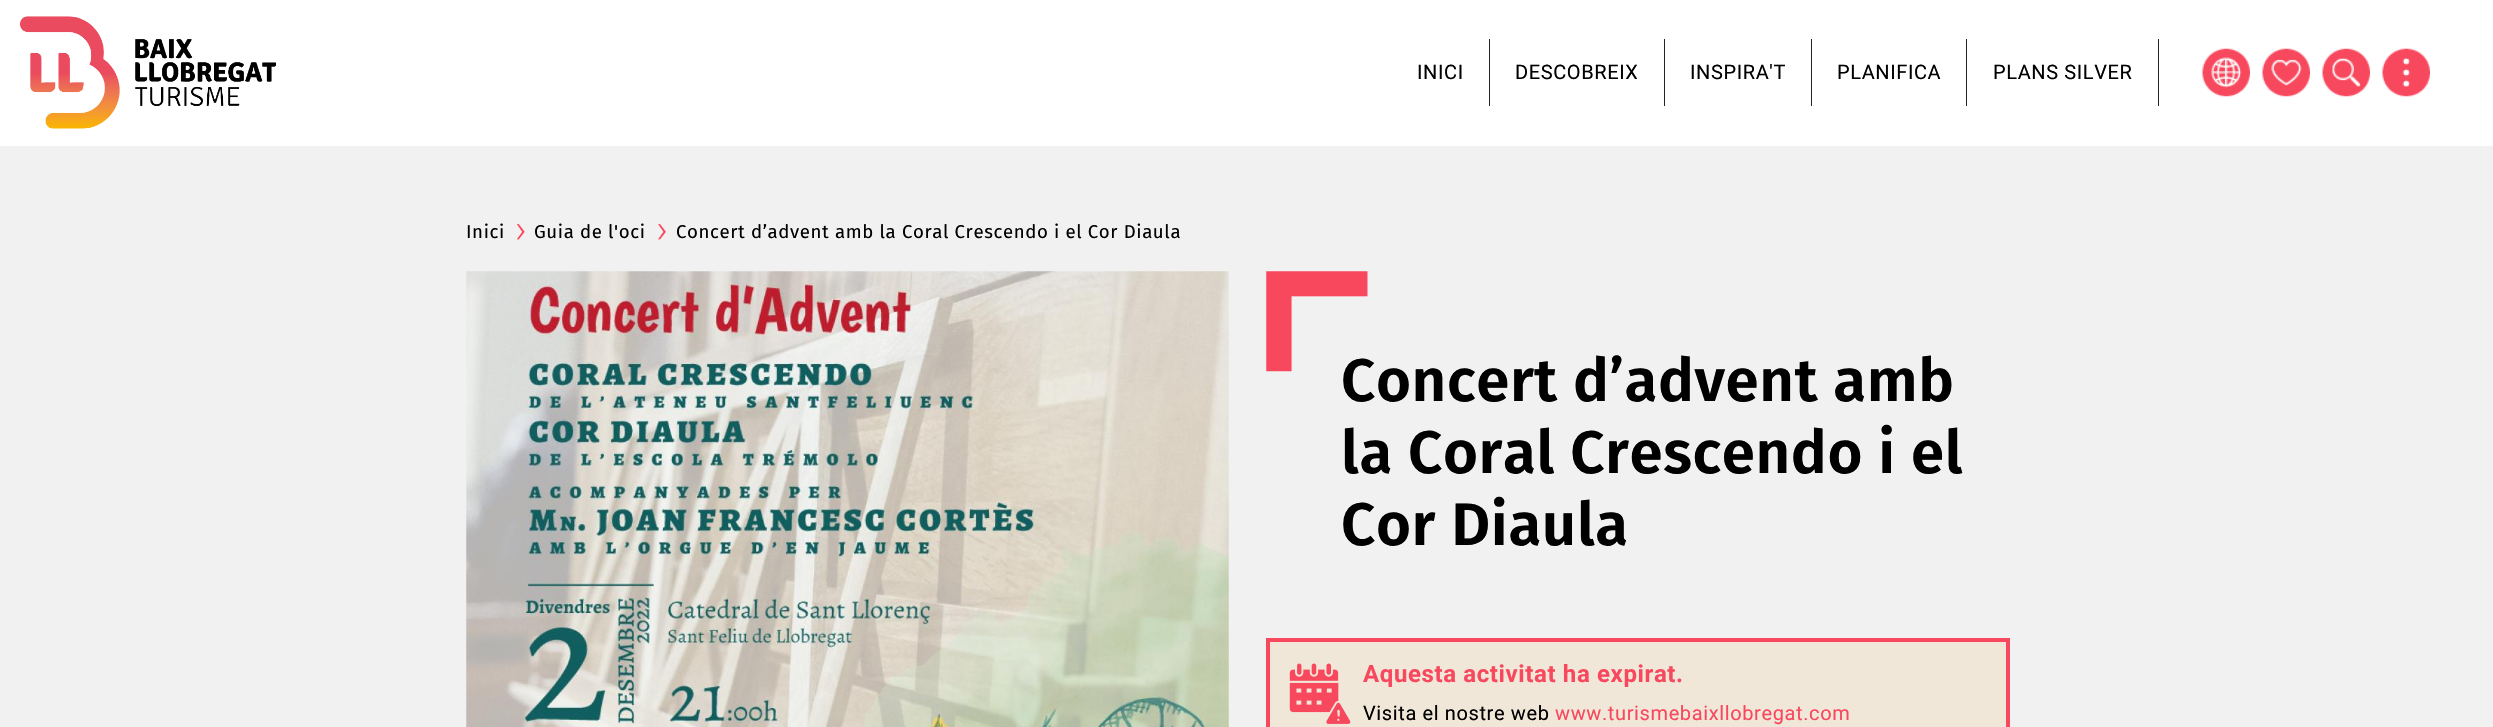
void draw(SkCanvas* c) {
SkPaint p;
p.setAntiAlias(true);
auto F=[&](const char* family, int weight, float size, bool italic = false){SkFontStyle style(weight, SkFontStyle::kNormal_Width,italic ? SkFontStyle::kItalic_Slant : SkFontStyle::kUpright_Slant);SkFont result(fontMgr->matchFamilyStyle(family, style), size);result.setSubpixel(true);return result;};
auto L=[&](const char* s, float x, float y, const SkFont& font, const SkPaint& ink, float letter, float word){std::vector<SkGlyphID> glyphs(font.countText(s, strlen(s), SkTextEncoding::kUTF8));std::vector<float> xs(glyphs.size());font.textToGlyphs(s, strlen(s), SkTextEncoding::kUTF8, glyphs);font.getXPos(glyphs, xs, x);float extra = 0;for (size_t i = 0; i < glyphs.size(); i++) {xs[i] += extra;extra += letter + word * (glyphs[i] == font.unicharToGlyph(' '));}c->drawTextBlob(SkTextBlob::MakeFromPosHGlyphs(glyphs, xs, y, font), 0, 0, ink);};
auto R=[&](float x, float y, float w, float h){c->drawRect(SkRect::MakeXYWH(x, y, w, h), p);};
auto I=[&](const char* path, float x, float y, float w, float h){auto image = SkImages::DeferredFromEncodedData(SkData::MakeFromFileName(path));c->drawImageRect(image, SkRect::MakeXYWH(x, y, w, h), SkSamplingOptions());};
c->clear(0xffffffff);
I("1.png",20,16,256,113);
p.setColor(0xff222222);
R(1489,39,1,67);
auto f1 = F("Roboto",400,20);
p.setColor(0xff000000);
L("INICI",1417,79,f1,p,.62,0);
p.setColor(0xff222222);
R(1664,39,1,67);
p.setColor(0xff000000);
L("DESCOBREIX",1515,79,f1,p,.62,0);
p.setColor(0xff222222);
R(1811,39,1,67);
p.setColor(0xff000000);
L("INSPIRA'T",1690,79,f1,p,.62,0);
p.setColor(0xff222222);
R(1966,39,1,67);
p.setColor(0xff000000);
L("PLANIFICA",1837,79,f1,p,.62,0);
p.setColor(0xff222222);
R(2158,39,1,67);
p.setColor(0xff000000);
L("PLANS SILVER",1993,79,f1,p,.62,0);
I("2.png",2202,48,48,49);
I("3.png",2262,48,48,49);
I("4.png",2322,48,48,49);
I("5.png",2382,48,48,49);
p.setColor(0xfff1f1f1);
R(0,146,2493,581);
auto f2 = F("Fira Sans",400,18.6);
p.setColor(0xff000000);
L("Inici",466,238,f2,p,.62,0);
I("6.png",516,224,9,16);
L("Guia de l'oci",534,238,f2,p,.62,0);
I("7.png",658,224,8,16);
L("Concert d’advent amb la Coral Crescendo i el Cor Diaula",676,238,f2,p,.62,0);
I("8.png",466,271,763,456);
I("9.png",1266,271,102,101);
auto f3 = F("Fira Sans",600,60);
L("Concert d’advent amb",1341,401,f3,p,.62,0);
L("la Coral Crescendo i el",1341,473,f3,p,.62,0);
L("Cor Diaula",1341,545,f3,p,.62,0);
p.setColor(0xfff1e7d9);
R(1270,642,736,85);
I("10.png",1289,663,62,61);
p.setStroke(true);
p.setStrokeWidth(4);
p.setColor(0xfff8485e);
c->drawRect(SkRect::MakeXYWH(1268,640,740,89),p);
auto f4 = F("Roboto",700,24);
p.setStroke(false);
L("Aquesta activitat ha expirat.",1363,682,f4,p,.62,0);
p.setColor(0xff000000);
L("Visita el nostre web",1363,720,f1,p,.62,0);
p.setColor(0xfff8485e);
L("www.turismebaixllobregat.com",1555,720,f1,p,.62,0);
}
